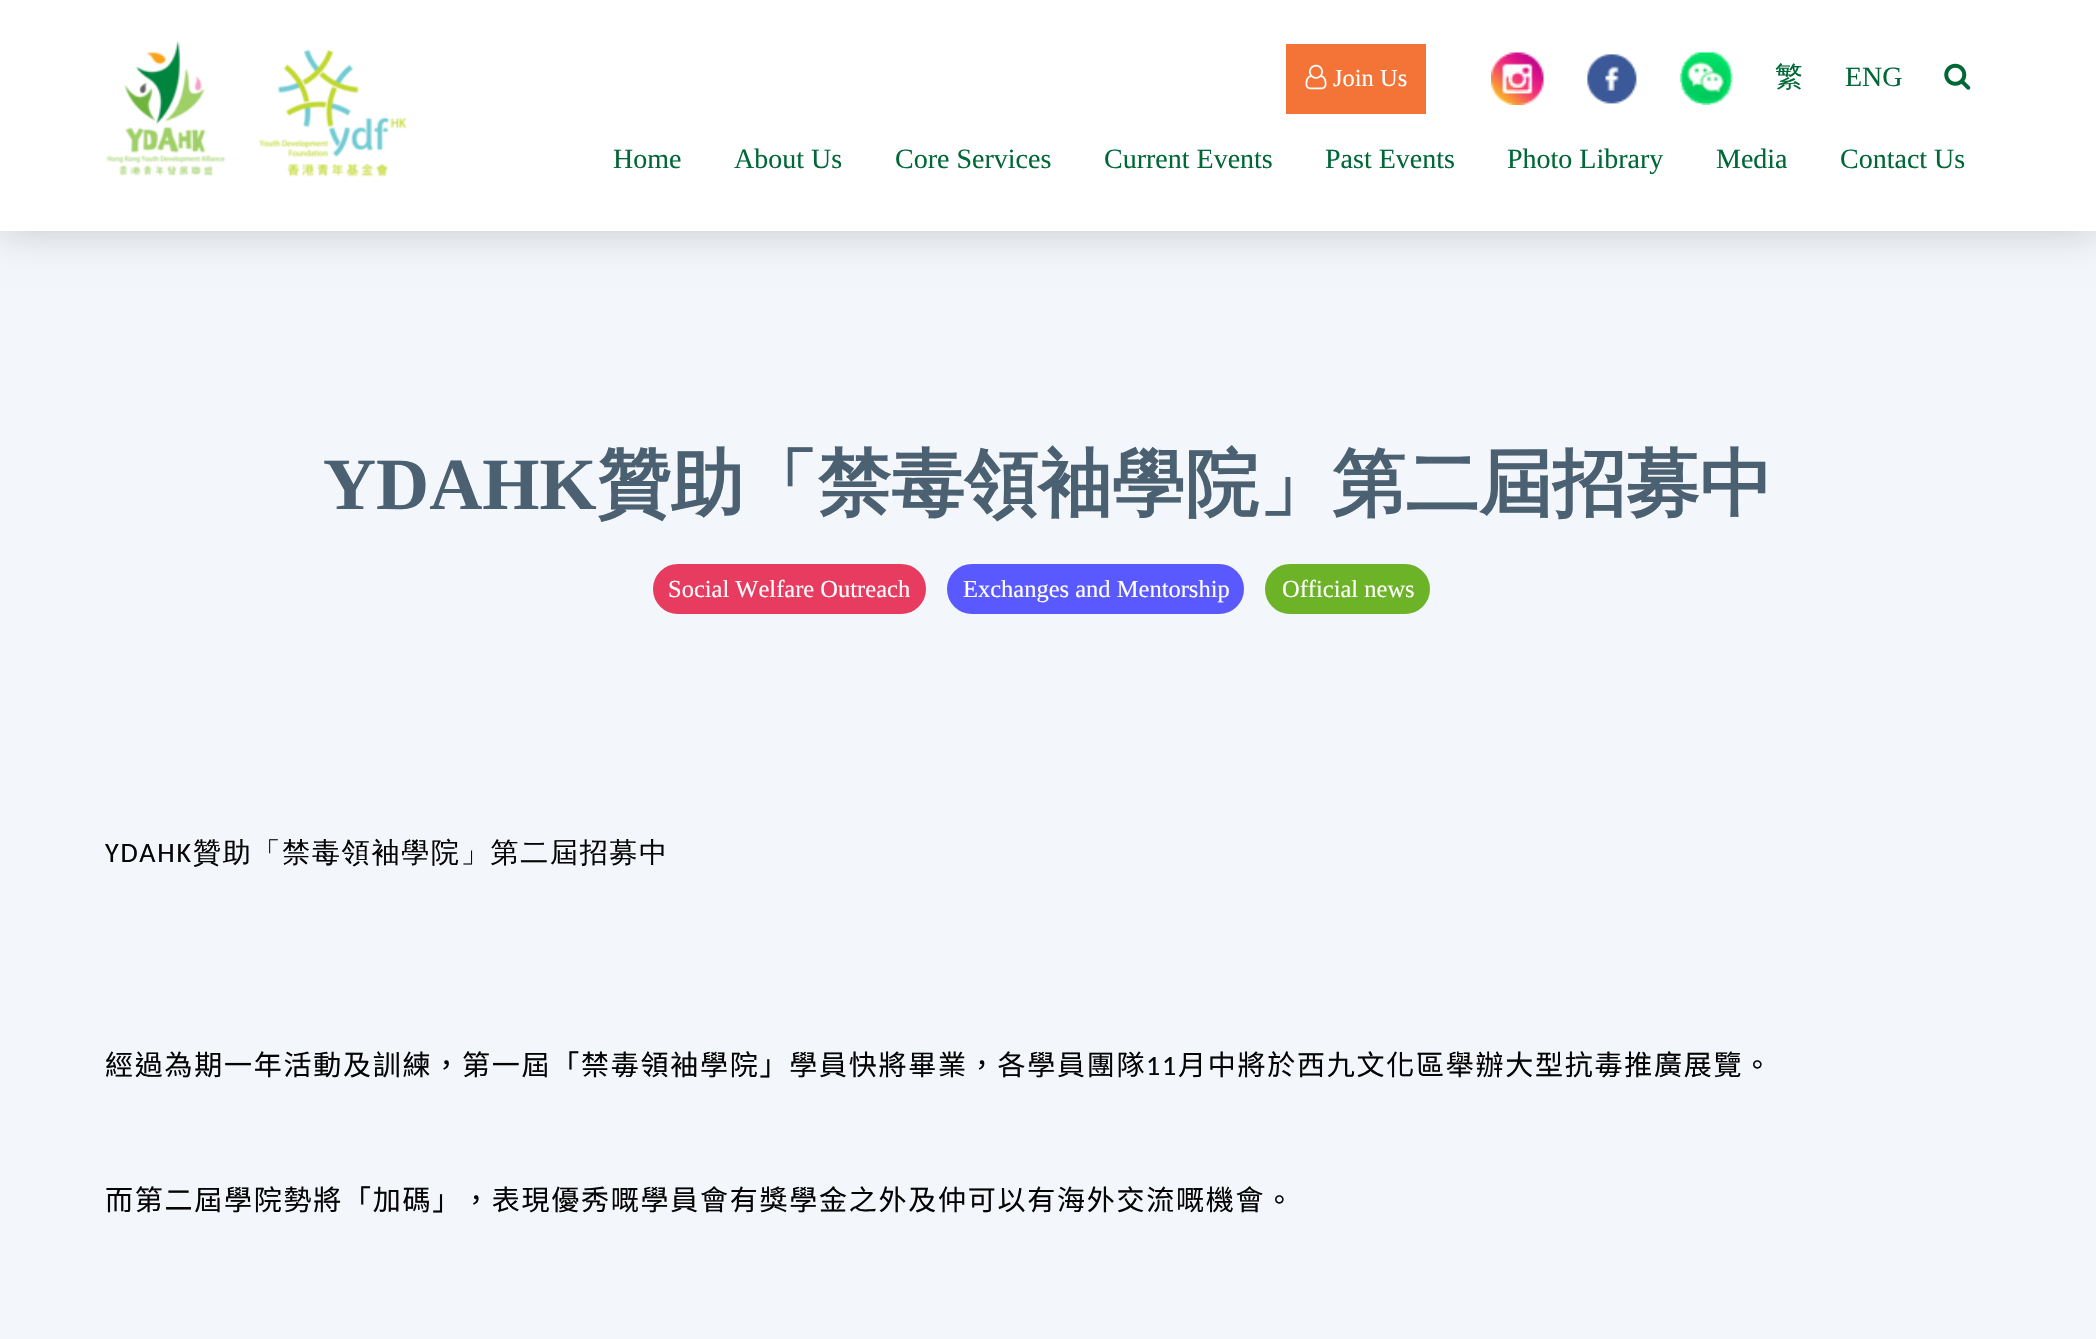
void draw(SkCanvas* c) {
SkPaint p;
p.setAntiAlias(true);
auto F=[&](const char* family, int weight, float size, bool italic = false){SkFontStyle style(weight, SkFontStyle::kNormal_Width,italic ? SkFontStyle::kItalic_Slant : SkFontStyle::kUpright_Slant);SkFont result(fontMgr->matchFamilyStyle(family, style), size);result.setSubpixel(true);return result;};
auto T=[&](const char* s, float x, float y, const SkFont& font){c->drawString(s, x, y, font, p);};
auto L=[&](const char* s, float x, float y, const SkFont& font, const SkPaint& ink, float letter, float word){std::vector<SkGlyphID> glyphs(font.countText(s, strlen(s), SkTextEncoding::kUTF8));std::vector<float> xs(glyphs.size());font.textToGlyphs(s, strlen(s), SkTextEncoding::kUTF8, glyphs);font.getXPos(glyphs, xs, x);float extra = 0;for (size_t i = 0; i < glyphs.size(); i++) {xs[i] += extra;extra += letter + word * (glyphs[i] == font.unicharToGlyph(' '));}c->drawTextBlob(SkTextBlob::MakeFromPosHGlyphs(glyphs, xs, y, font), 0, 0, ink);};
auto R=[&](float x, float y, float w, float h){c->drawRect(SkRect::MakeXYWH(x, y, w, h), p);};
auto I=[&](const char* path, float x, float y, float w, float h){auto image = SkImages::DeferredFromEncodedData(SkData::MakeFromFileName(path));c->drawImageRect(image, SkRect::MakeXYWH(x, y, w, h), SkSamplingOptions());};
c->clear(0xfff3f6fb);
p.setColor(0x33000000);
p.setMaskFilter(SkMaskFilter::MakeBlur(kNormal_SkBlurStyle, 19));
c->drawRect(SkRect::MakeXYWH(0,0,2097,231),p);
p.setMaskFilter(nullptr);
p.setColor(0xffffffff);
R(0,0,2096,231);
I("1.png",106,41,301,136);
p.setColor(0xfff47437);
R(1286,44,140,70);
I("2.png",1305,64,22,26);
auto f1 = F("Liberation Serif",400,24.5);
p.setColor(0xffffffff);
T("Join Us",1333,86,f1);
I("3.png",1491,52,53,53);
I("4.png",1587,54,50,50);
I("5.png",1680,52,53,53);
auto f2 = F("WenQuanYi Zen Hei",500,28);
p.setColor(0xff006737);
T("繁",1775,86,f2);
auto f3 = F("Liberation Serif",400,28);
T("ENG",1845,86,f3);
I("6.png",1944,63,27,27);
T("Home",613,168,f3);
T("About Us",734,168,f3);
T("Core Services",895,168,f3);
T("Current Events",1104,168,f3);
T("Past Events",1325,168,f3);
T("Photo Library",1507,168,f3);
T("Media",1716,168,f3);
T("Contact Us",1840,168,f3);
auto f4 = F("Liberation Serif",700,73.5);
p.setColor(0xff4b6172);
T("YDAHK",323,509,f4);
auto f5 = F("WenQuanYi Zen Hei",700,73.5);
T("贊助「禁毒領袖學院」第二屆招募中",597,509,f5);
p.setColor(0xffe73c60);
c->drawRoundRect(SkRect::MakeXYWH(654,565,271,48),24,24,p);
p.setStroke(true);
p.setStrokeWidth(2);
c->drawRoundRect(SkRect::MakeXYWH(654,565,271,48),24,24,p);
p.setStroke(false);
p.setColor(0xffffffff);
T("Social Welfare Outreach",668,597,f1);
p.setColor(0xff5959ff);
c->drawRoundRect(SkRect::MakeXYWH(948,565,295,48),24,24,p);
p.setStroke(true);
c->drawRoundRect(SkRect::MakeXYWH(948,565,295,48),24,24,p);
p.setStroke(false);
p.setColor(0xffffffff);
T("Exchanges and Mentorship",963,597,f1);
p.setColor(0xff6db327);
c->drawRoundRect(SkRect::MakeXYWH(1266,565,163,48),24,24,p);
p.setStroke(true);
c->drawRoundRect(SkRect::MakeXYWH(1266,565,163,48),24,24,p);
p.setStroke(false);
p.setColor(0xffffffff);
T("Official news",1282,597,f1);
auto f6 = F("Carlito",400,28);
p.setColor(0xff050505);
L("YDAHK",105,862,f6,p,1.75,0);
L("贊助「禁毒領袖學院」第二屆招募中",193,862,f2,p,1.75,0);
auto f7 = F("Noto Sans CJK TC",400,28);
L("經過為期一年活動及訓練，第一屆「禁毒領袖學院」學員快將畢業，各學員團隊",105,1075,f7,p,1.75,0);
L("11",1146,1075,f6,p,1.75,0);
L("月中將於西九文化區舉辦大型抗毒推廣展覽。",1178,1075,f7,p,1.75,0);
L("而第二屆學院勢將「加碼」，表現優秀嘅學員會有獎學金之外及仲可以有海外交流嘅機會。",105,1210,f7,p,1.75,0);
}
